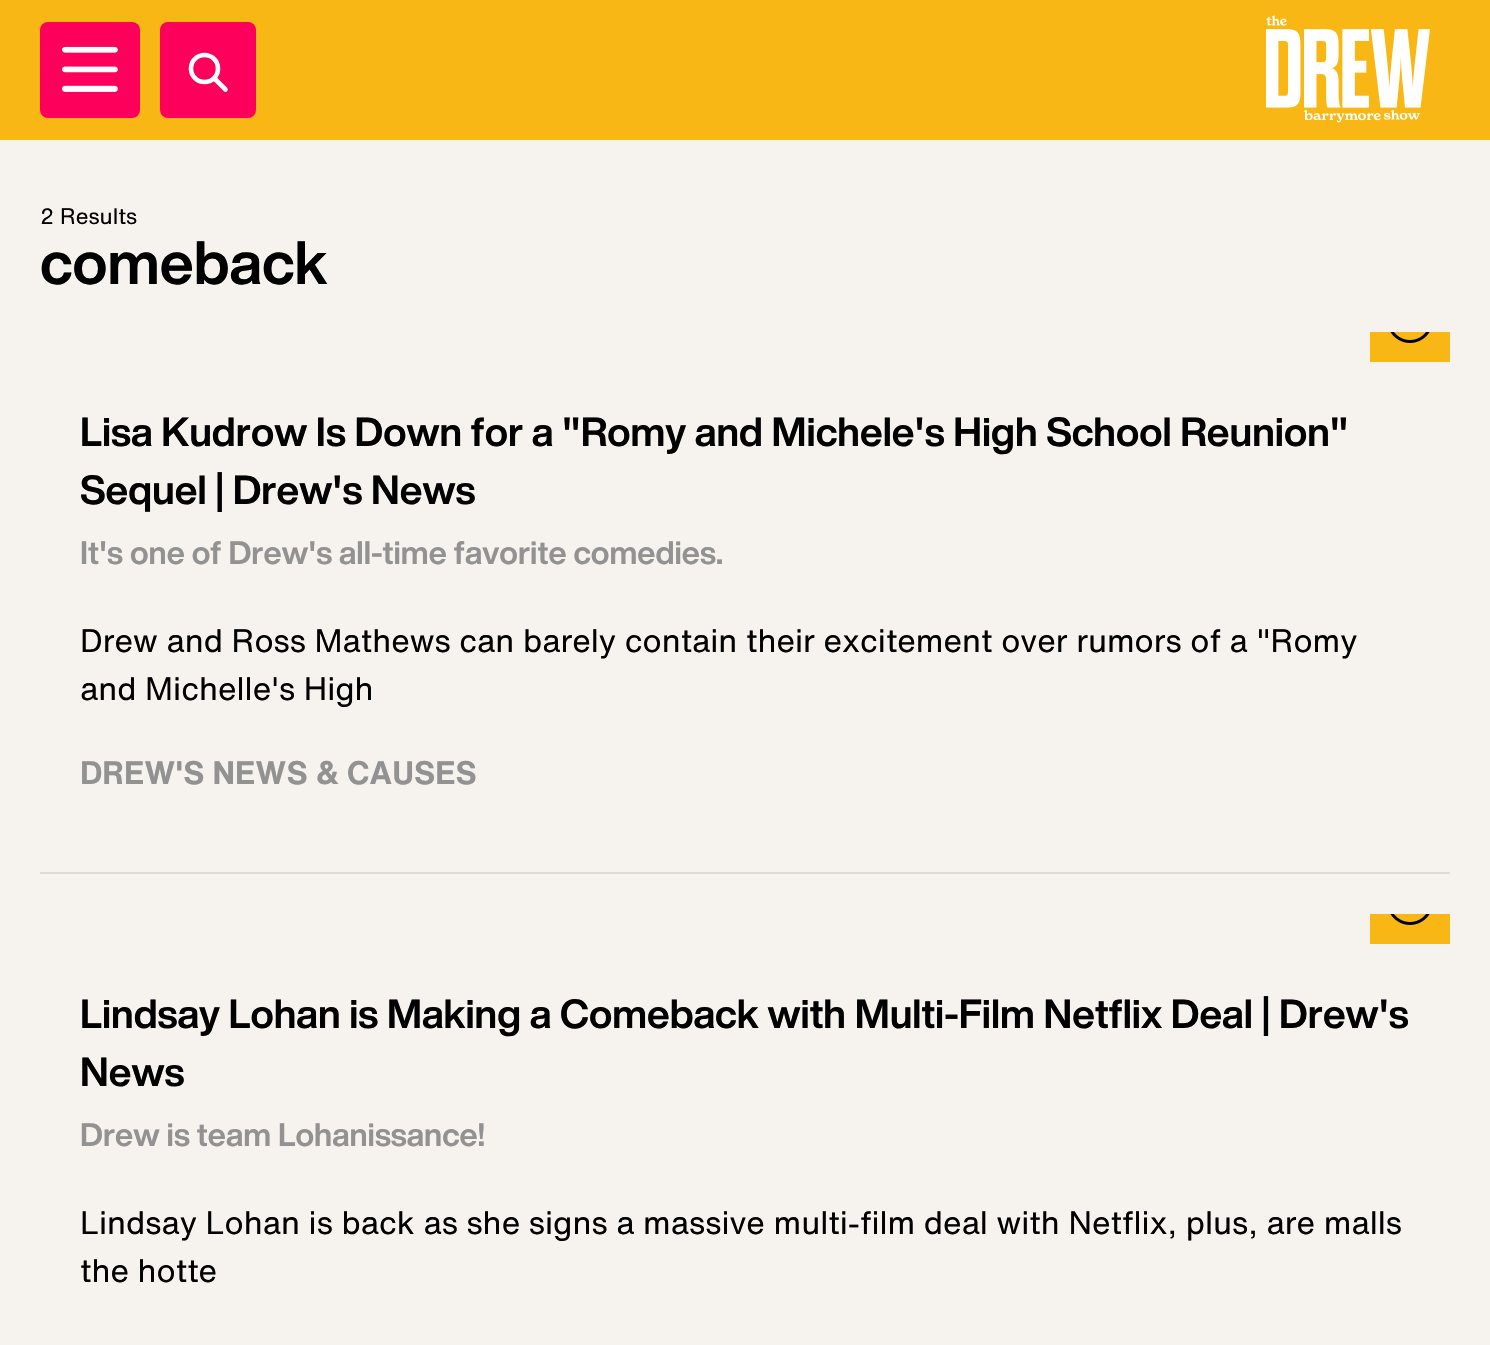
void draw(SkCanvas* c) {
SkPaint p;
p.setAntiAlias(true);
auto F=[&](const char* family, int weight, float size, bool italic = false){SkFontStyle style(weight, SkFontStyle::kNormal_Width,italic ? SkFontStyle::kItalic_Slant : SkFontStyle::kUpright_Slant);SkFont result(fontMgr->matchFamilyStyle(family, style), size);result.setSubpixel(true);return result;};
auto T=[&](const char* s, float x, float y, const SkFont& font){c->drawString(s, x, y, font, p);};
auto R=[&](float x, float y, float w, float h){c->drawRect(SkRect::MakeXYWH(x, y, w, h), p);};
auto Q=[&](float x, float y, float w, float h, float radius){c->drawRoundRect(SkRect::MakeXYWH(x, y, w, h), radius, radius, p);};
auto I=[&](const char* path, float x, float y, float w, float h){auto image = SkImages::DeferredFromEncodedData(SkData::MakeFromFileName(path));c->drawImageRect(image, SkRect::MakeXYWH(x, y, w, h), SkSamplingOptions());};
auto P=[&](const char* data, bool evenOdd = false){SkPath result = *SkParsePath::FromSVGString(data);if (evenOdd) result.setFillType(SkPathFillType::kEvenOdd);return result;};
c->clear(0xfff6f3ef);
p.setColor(0xfff8b715);
R(0,0,1490,140);
I("1.png",1266,15,164,108);
p.setColor(0xfffd005b);
Q(40,22,100,96,8);
I("2.png",62,46,56,46);
Q(160,22,96,96,8);
p.setStroke(true);
p.setStrokeWidth(4.6);
p.setColor(0xffffffff);
c->drawCircle(204.5,68.5,13.5,p);
p.setStrokeCap(SkPaint::kRound_Cap);
p.setStrokeJoin(SkPaint::kRound_Join);
c->drawPath(P("M215.5 79.5l10 10"),p);
auto f1 = F("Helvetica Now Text",400,22);
p.setStroke(false);
p.setColor(0xff000000);
T("2 Results",40,224,f1);
auto f2 = F("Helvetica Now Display",700,60);
T("comeback",40,284,f2);
p.setColor(0xffdcdcdc);
R(40,872,1410,2);
p.setColor(0xfff8b715);
R(1370,332,80,30);
I("3.png",1390,332,40,11);
auto f3 = F("Helvetica Now Display",700,40);
p.setColor(0xff000000);
T("Lisa Kudrow Is Down for a \"Romy and Michele's High School Reunion\"",80,446,f3);
T("Sequel | Drew's News",80,504,f3);
auto f4 = F("Helvetica Now Display",700,32);
p.setColor(0xff929292);
T("It's one of Drew's all-time favorite comedies.",80,564,f4);
auto f5 = F("Helvetica Now Text",400,32);
p.setColor(0xff000000);
T("Drew and Ross Mathews can barely contain their excitement over rumors of a \"Romy",80,652,f5);
T("and Michelle's High",80,700,f5);
auto f6 = F("Helvetica Now Text",700,32);
p.setColor(0xff929292);
T("DREW'S NEWS & CAUSES",80,784,f6);
p.setColor(0xfff8b715);
R(1370,914,80,30);
I("3.png",1390,914,40,11);
p.setColor(0xff000000);
T("Lindsay Lohan is Making a Comeback with Multi-Film Netflix Deal | Drew's",80,1028,f3);
T("News",80,1086,f3);
p.setColor(0xff929292);
T("Drew is team Lohanissance!",80,1146,f4);
p.setColor(0xff000000);
T("Lindsay Lohan is back as she signs a massive multi-film deal with Netflix, plus, are malls",80,1234,f5);
T("the hotte",80,1282,f5);
}
